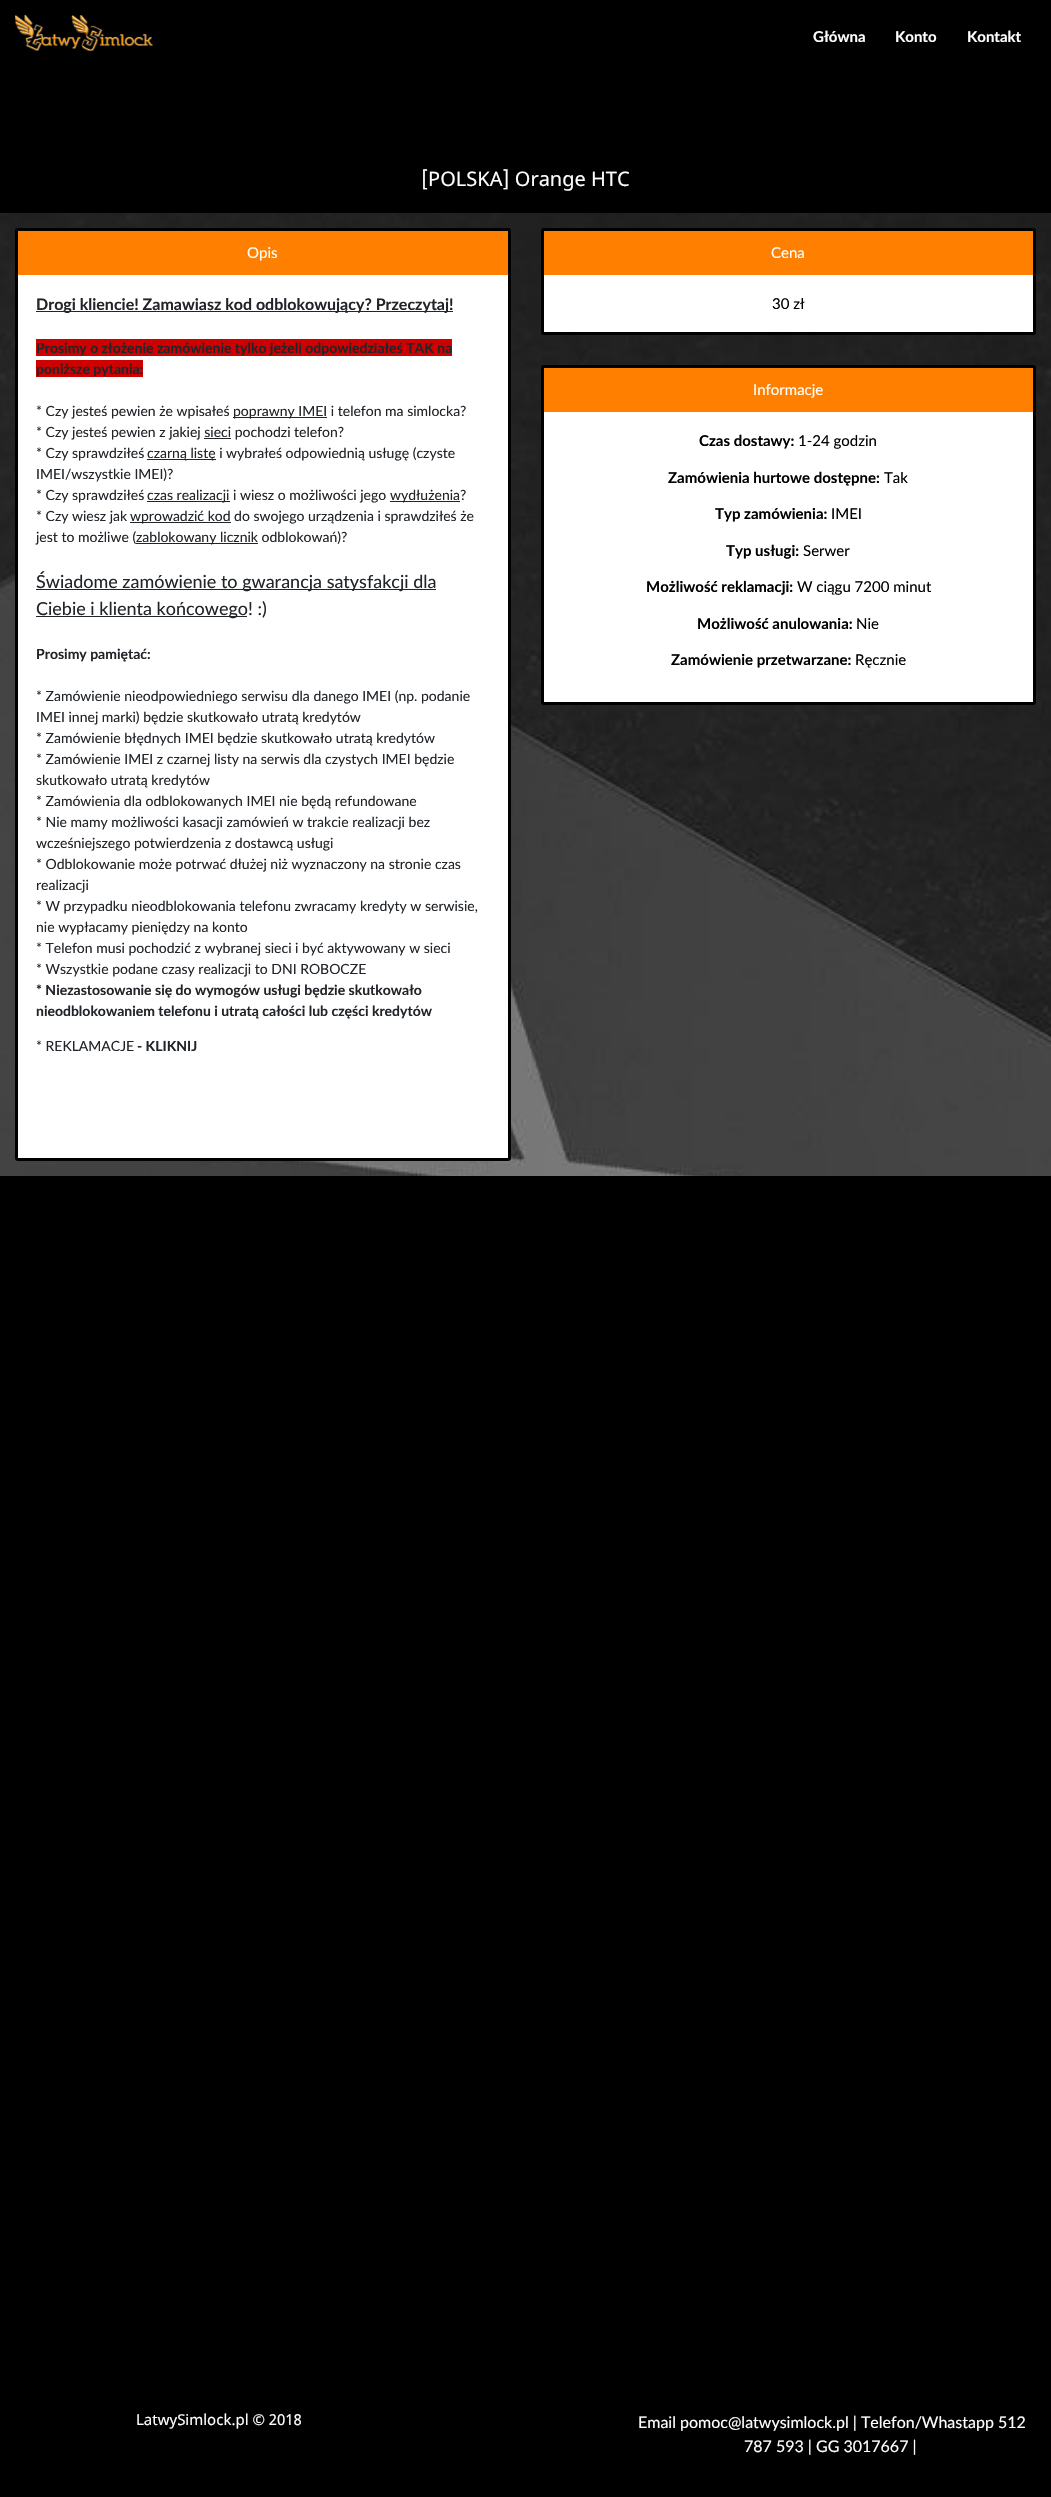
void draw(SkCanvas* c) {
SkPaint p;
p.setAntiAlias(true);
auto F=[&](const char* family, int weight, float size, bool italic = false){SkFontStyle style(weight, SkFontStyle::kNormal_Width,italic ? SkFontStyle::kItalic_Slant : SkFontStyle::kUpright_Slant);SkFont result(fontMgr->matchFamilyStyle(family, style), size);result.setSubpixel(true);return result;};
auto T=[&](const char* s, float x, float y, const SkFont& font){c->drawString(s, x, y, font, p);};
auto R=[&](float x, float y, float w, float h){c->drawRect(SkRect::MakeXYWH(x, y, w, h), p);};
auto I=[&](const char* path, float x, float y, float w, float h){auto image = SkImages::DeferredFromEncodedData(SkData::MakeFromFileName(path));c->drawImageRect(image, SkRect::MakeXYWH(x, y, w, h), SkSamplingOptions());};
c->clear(0xff000000);
I("1.png",15,15,138,36);
auto f1 = F("Lato",700,15);
p.setColor(0xffffffff);
T("Główna",813,42,f1);
T("Konto",895,42,f1);
T("Kontakt",967,42,f1);
auto f2 = F("Noto Sans",400,20);
T("[POLSKA] Orange HTC",421,186,f2);
I("2.png",0,213,1051,963);
p.setStroke(true);
p.setStrokeWidth(3);
p.setColor(0xff000000);
c->drawRoundRect(SkRect::MakeXYWH(16.5,229.5,493,930),1.5,1.5,p);
p.setStroke(false);
p.setColor(0xffff8000);
R(18,231,490,44);
auto f3 = F("Lato",400,15);
p.setColor(0xffffffff);
T("Opis",247,258,f3);
R(18,275,490,883);
p.setColor(0xff212529);
R(36,311,417,1);
auto f4 = F("Lato",700,16);
T("Drogi kliencie! Zamawiasz kod odblokowujący? Przeczytaj!",36,310,f4);
p.setColor(0xffce0000);
R(36,339,416,17);
auto f5 = F("Lato",700,14);
p.setColor(0xff212529);
T("Prosimy o złożenie zamówienie tylko jeżeli odpowiedziałeś TAK na",36,353,f5);
p.setColor(0xffce0000);
R(36,360,107,17);
p.setColor(0xff212529);
T("poniższe pytania:",36,374,f5);
auto f6 = F("Lato",400,14);
T("* Czy jesteś pewien że wpisałeś",36,416,f6);
R(233,417,94,1);
T("poprawny IMEI i telefon ma simlocka?",233,416,f6);
T("* Czy jesteś pewien z jakiej sieci pochodzi telefon?",36,437,f6);
R(204,438,27,1);
T("* Czy sprawdziłeś",36,458,f6);
R(147,459,69,1);
T("czarną listę i wybrałeś odpowiednią usługę (czyste",147,458,f6);
T("IMEI/wszystkie IMEI)?",36,479,f6);
T("* Czy sprawdziłeś",36,500,f6);
R(147,501,83,1);
T("czas realizacji i wiesz o możliwości jego",147,500,f6);
R(390,501,70,1);
T("wydłużenia?",390,500,f6);
T("* Czy wiesz jak",36,521,f6);
R(130,522,101,1);
T("wprowadzić kod do swojego urządzenia i sprawdziłeś że",130,521,f6);
T("jest to możliwe (",36,542,f6);
R(136,543,122,1);
T("zablokowany licznik odblokowań)?",136,542,f6);
R(36,589,400,1);
auto f7 = F("Lato",400,18);
T("Świadome zamówienie to gwarancja satysfakcji dla",36,588,f7);
R(36,616,211,1);
T("Ciebie i klienta końcowego! :)",36,615,f7);
T("Prosimy pamiętać:",36,659,f5);
T("* Zamówienie nieodpowiedniego serwisu dla danego IMEI (np. podanie",36,701,f6);
T("IMEI innej marki) będzie skutkowało utratą kredytów",36,722,f6);
T("* Zamówienie błędnych IMEI będzie skutkowało utratą kredytów",36,743,f6);
T("* Zamówienie IMEI z czarnej listy na serwis dla czystych IMEI będzie",36,764,f6);
T("skutkowało utratą kredytów",36,785,f6);
T("* Zamówienia dla odblokowanych IMEI nie będą refundowane",36,806,f6);
T("* Nie mamy możliwości kasacji zamówień w trakcie realizacji bez",36,827,f6);
T("wcześniejszego potwierdzenia z dostawcą usługi",36,848,f6);
T("* Odblokowanie może potrwać dłużej niż wyznaczony na stronie czas",36,869,f6);
T("realizacji",36,890,f6);
T("* W przypadku nieodblokowania telefonu zwracamy kredyty w serwisie,",36,911,f6);
T("nie wypłacamy pieniędzy na konto",36,932,f6);
T("* Telefon musi pochodzić z wybranej sieci i być aktywowany w sieci",36,953,f6);
T("* Wszystkie podane czasy realizacji to DNI ROBOCZE",36,974,f6);
T("* Niezastosowanie się do wymogów usługi będzie skutkowało",36,995,f5);
T("nieodblokowaniem telefonu i utratą całości lub części kredytów",36,1016,f5);
T("* REKLAMACJE",36,1051,f6);
T("- KLIKNIJ",137,1051,f5);
p.setStroke(true);
p.setColor(0xff000000);
c->drawRoundRect(SkRect::MakeXYWH(542.5,229.5,492,104),1.5,1.5,p);
p.setStroke(false);
p.setColor(0xffff8000);
R(544,231,489,44);
p.setColor(0xffffffff);
T("Cena",771,258,f3);
R(544,275,489,57);
p.setColor(0xff000000);
T("30 zł",772,309,f3);
p.setStroke(true);
c->drawRoundRect(SkRect::MakeXYWH(542.5,366.5,492,337),1.5,1.5,p);
p.setStroke(false);
p.setColor(0xffff8000);
R(544,368,489,44);
p.setColor(0xffffffff);
T("Informacje",753,395,f3);
R(544,412,489,290);
p.setColor(0xff000000);
T("Czas dostawy:",699,446,f1);
T("1-24 godzin",798,446,f3);
T("Zamówienia hurtowe dostępne:",668,483,f1);
T("Tak",884,483,f3);
T("Typ zamówienia:",715,519,f1);
T("IMEI",831,519,f3);
T("Typ usługi:",726,556,f1);
T("Serwer",803,556,f3);
T("Możliwość reklamacji:",646,592,f1);
T("W ciągu 7200 minut",797,592,f3);
T("Możliwość anulowania:",697,629,f1);
T("Nie",856,629,f3);
T("Zamówienie przetwarzane:",671,665,f1);
T("Ręcznie",855,665,f3);
auto f8 = F("Noto Sans",400,15);
p.setColor(0xffffffff);
T("LatwySimlock.pl © 2018",136,2425,f8);
auto f9 = F("Lato",400,16);
T("Email pomoc@latwysimlock.pl | Telefon/Whastapp 512",638,2428,f9);
T("787 593 | GG 3017667 |",744,2452,f9);
}
